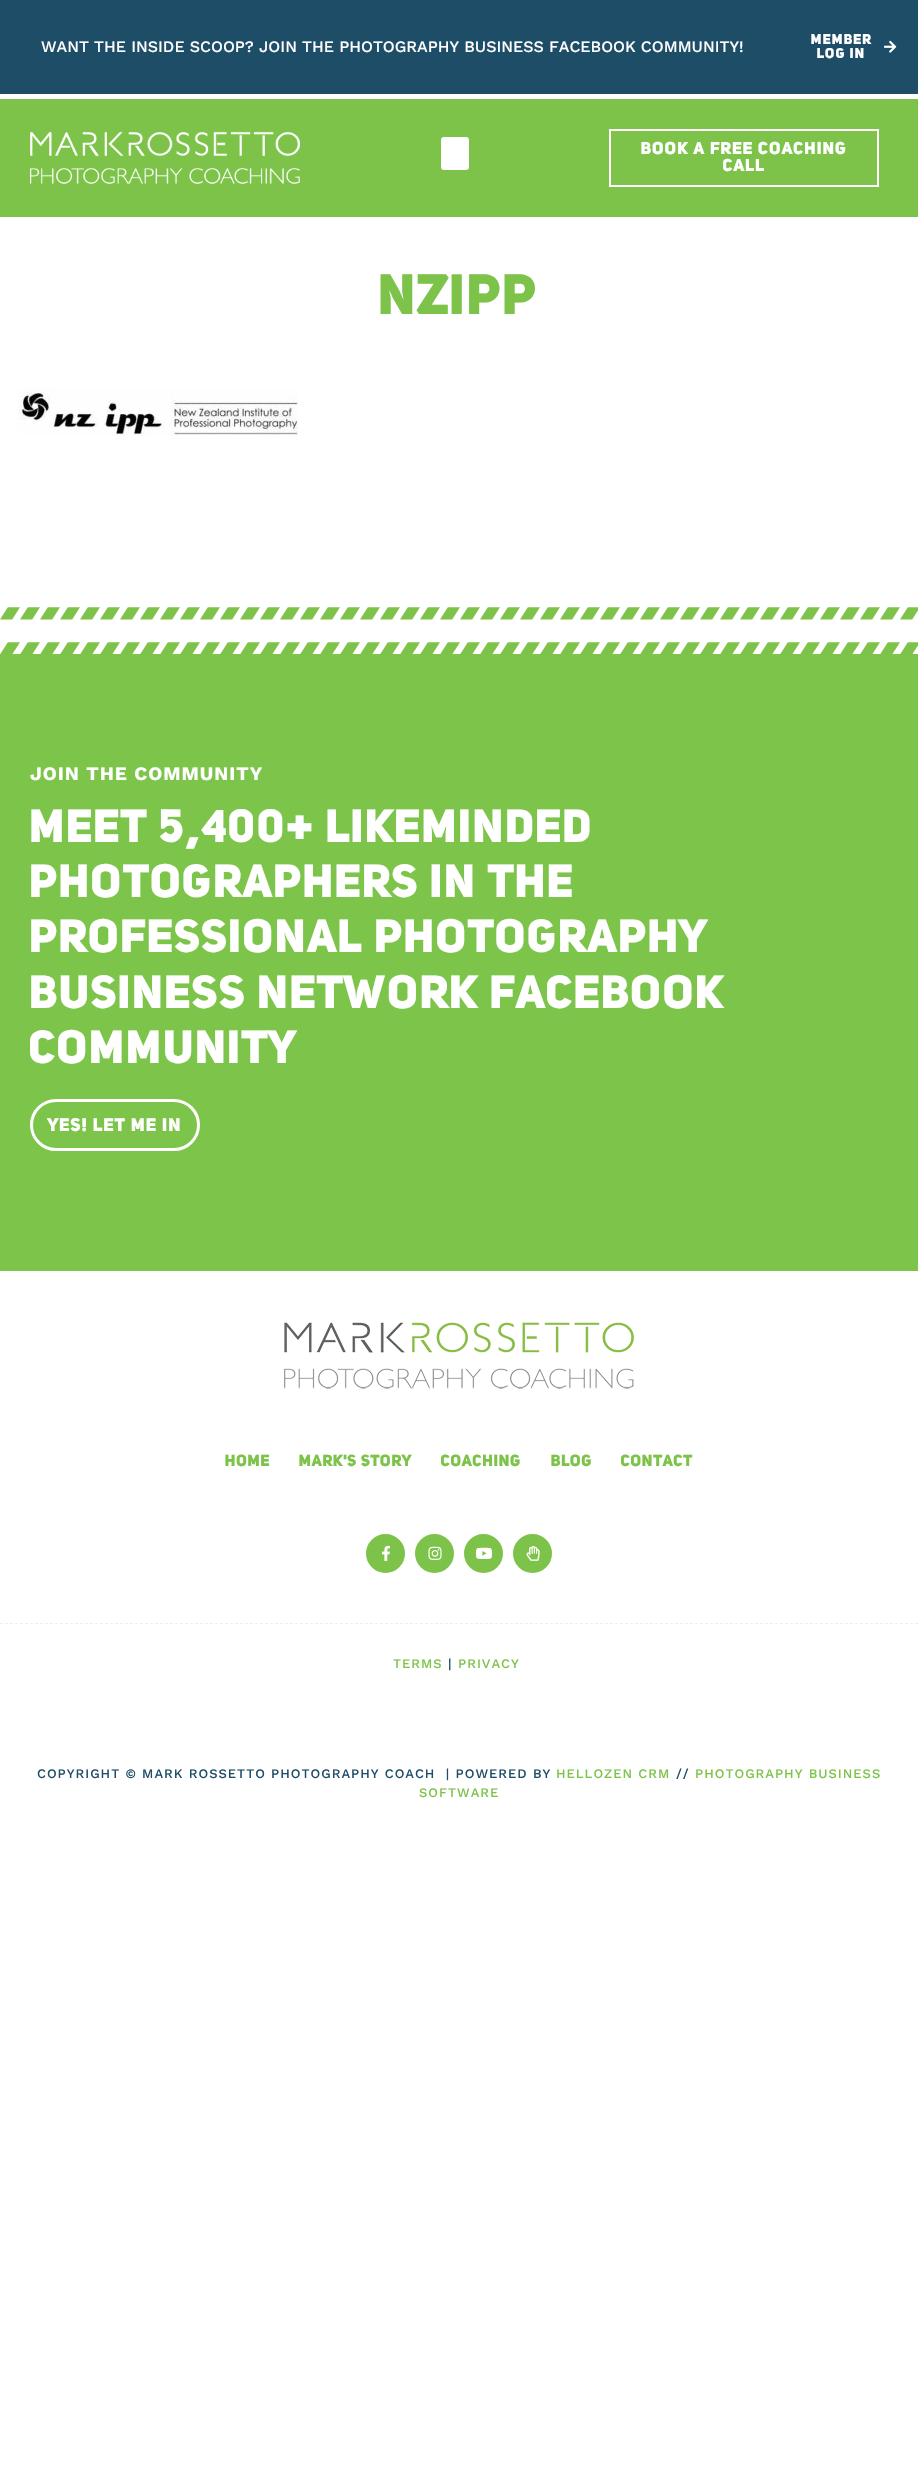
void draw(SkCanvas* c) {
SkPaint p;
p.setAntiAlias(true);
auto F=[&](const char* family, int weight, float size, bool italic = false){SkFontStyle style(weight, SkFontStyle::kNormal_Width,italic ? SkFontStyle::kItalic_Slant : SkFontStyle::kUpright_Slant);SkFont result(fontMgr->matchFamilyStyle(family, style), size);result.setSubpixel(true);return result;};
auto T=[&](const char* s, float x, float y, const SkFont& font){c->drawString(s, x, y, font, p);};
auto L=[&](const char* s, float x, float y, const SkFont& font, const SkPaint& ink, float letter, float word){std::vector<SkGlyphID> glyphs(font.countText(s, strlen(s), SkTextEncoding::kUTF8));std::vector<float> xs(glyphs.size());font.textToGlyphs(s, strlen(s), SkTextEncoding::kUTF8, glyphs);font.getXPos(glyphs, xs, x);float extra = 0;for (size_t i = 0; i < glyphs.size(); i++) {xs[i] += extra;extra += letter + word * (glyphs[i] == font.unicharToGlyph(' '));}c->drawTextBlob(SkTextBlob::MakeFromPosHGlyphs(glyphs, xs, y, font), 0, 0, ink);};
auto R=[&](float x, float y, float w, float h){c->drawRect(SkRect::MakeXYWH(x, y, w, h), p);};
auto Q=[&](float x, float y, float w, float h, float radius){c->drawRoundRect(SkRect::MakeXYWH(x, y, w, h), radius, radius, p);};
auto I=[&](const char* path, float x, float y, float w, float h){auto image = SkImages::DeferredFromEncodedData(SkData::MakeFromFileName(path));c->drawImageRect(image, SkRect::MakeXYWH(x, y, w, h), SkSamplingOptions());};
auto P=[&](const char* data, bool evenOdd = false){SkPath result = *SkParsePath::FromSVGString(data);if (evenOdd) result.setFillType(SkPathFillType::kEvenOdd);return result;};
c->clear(0xffffffff);
p.setColor(0xff1e4d67);
R(0,0,918,94);
auto f1 = F("Work Sans",500,16);
p.setColor(0xffffffff);
T("WANT THE INSIDE SCOOP? JOIN THE PHOTOGRAPHY BUSINESS FACEBOOK COMMUNITY!",41,52,f1);
auto f2 = F("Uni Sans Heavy",900,14);
L("MEMBER",811,44,f2,p,1,0);
L("LOG IN",817,58,f2,p,1,0);
I("1.png",884,40,13,13);
p.setColor(0xff7dc34a);
R(0,99,918,118);
I("2.png",30,131,270,53);
p.setColor(0xffffffff);
Q(441,137,28,33,3);
p.setStroke(true);
p.setStrokeWidth(2);
c->drawRect(SkRect::MakeXYWH(610,130,268,56),p);
auto f3 = F("Uni Sans Heavy",900,17);
p.setStroke(false);
L("BOOK A FREE COACHING",641,154,f3,p,1,0);
L("CALL",723,171,f3,p,1,0);
auto f4 = F("Uni Sans Heavy",900,56);
p.setColor(0xff7dc34a);
L("NZIPP",379,314,f4,p,1,0);
I("3.png",18,388,280,48);
I("4.png",0,607,918,13);
I("5.png",0,642,918,12);
p.setColor(0xff7dc44b);
R(0,654,918,617);
auto f5 = F("Work Sans",700,19);
p.setColor(0xffffffff);
L("JOIN THE COMMUNITY",30,780,f5,p,1,0);
auto f6 = F("Uni Sans Heavy",900,46);
L("MEET 5,400+ LIKEMINDED",30,842,f6,p,1,0);
L("PHOTOGRAPHERS IN THE",30,897,f6,p,1,0);
L("PROFESSIONAL PHOTOGRAPHY",30,952,f6,p,1,0);
L("BUSINESS NETWORK FACEBOOK",30,1008,f6,p,1,0);
L("COMMUNITY",30,1063,f6,p,1,0);
p.setStroke(true);
p.setStrokeWidth(3);
c->drawRoundRect(SkRect::MakeXYWH(31.5,1100.5,167,49),24.5,24.5,p);
auto f7 = F("Uni Sans Heavy",900,18);
p.setStroke(false);
L("YES! LET ME IN",48,1131,f7,p,1,0);
p.setStroke(true);
p.setStrokeWidth(1);
p.setColor(0xffeeeeee);
p.setPathEffect(SkDashPathEffect::Make({{3,2}}, 0));
c->drawPath(P("M0 1623.5h918"),p);
p.setPathEffect(nullptr);
I("6.png",284,1322,350,67);
auto f8 = F("Uni Sans Heavy",900,16);
p.setStroke(false);
p.setColor(0xff7dc34a);
L("HOME",225,1466,f8,p,.5,0);
L("MARK'S STORY",299,1466,f8,p,.5,0);
L("COACHING",441,1466,f8,p,.5,0);
L("BLOG",551,1466,f8,p,.5,0);
L("CONTACT",621,1466,f8,p,.5,0);
c->drawCircle(385.5,1553.5,18,p);
p.setStroke(true);
p.setStrokeWidth(3);
c->drawCircle(385.5,1553.5,18,p);
I("7.png",382,1545,8,16);
p.setStroke(false);
c->drawCircle(434.5,1553.5,18,p);
p.setStroke(true);
c->drawCircle(434.5,1553.5,18,p);
I("8.png",428,1546,14,14);
p.setStroke(false);
c->drawCircle(483.5,1553.5,18,p);
p.setStroke(true);
c->drawCircle(483.5,1553.5,18,p);
I("9.png",476,1547,16,12);
p.setStroke(false);
c->drawCircle(532.5,1553.5,18,p);
p.setStroke(true);
c->drawCircle(532.5,1553.5,18,p);
I("10.png",526,1545,14,16);
auto f9 = F("Work Sans",500,13);
p.setStroke(false);
L("TERMS",393,1668,f9,p,1,0);
p.setColor(0xff1e4d67);
L("|",448,1668,f9,p,1,0);
p.setColor(0xff7dc34a);
L("PRIVACY",458,1668,f9,p,1,0);
p.setColor(0xff1e4d67);
L("COPYRIGHT © MARK ROSSETTO PHOTOGRAPHY COACH  | POWERED BY",37,1778,f9,p,1,0);
p.setColor(0xff7dc34a);
L("HELLOZEN CRM",556,1778,f9,p,1,0);
p.setColor(0xff1e4d67);
L("//",676,1778,f9,p,1,0);
p.setColor(0xff7dc34a);
L("PHOTOGRAPHY BUSINESS",695,1778,f9,p,1,0);
L("SOFTWARE",419,1797,f9,p,1,0);
}
